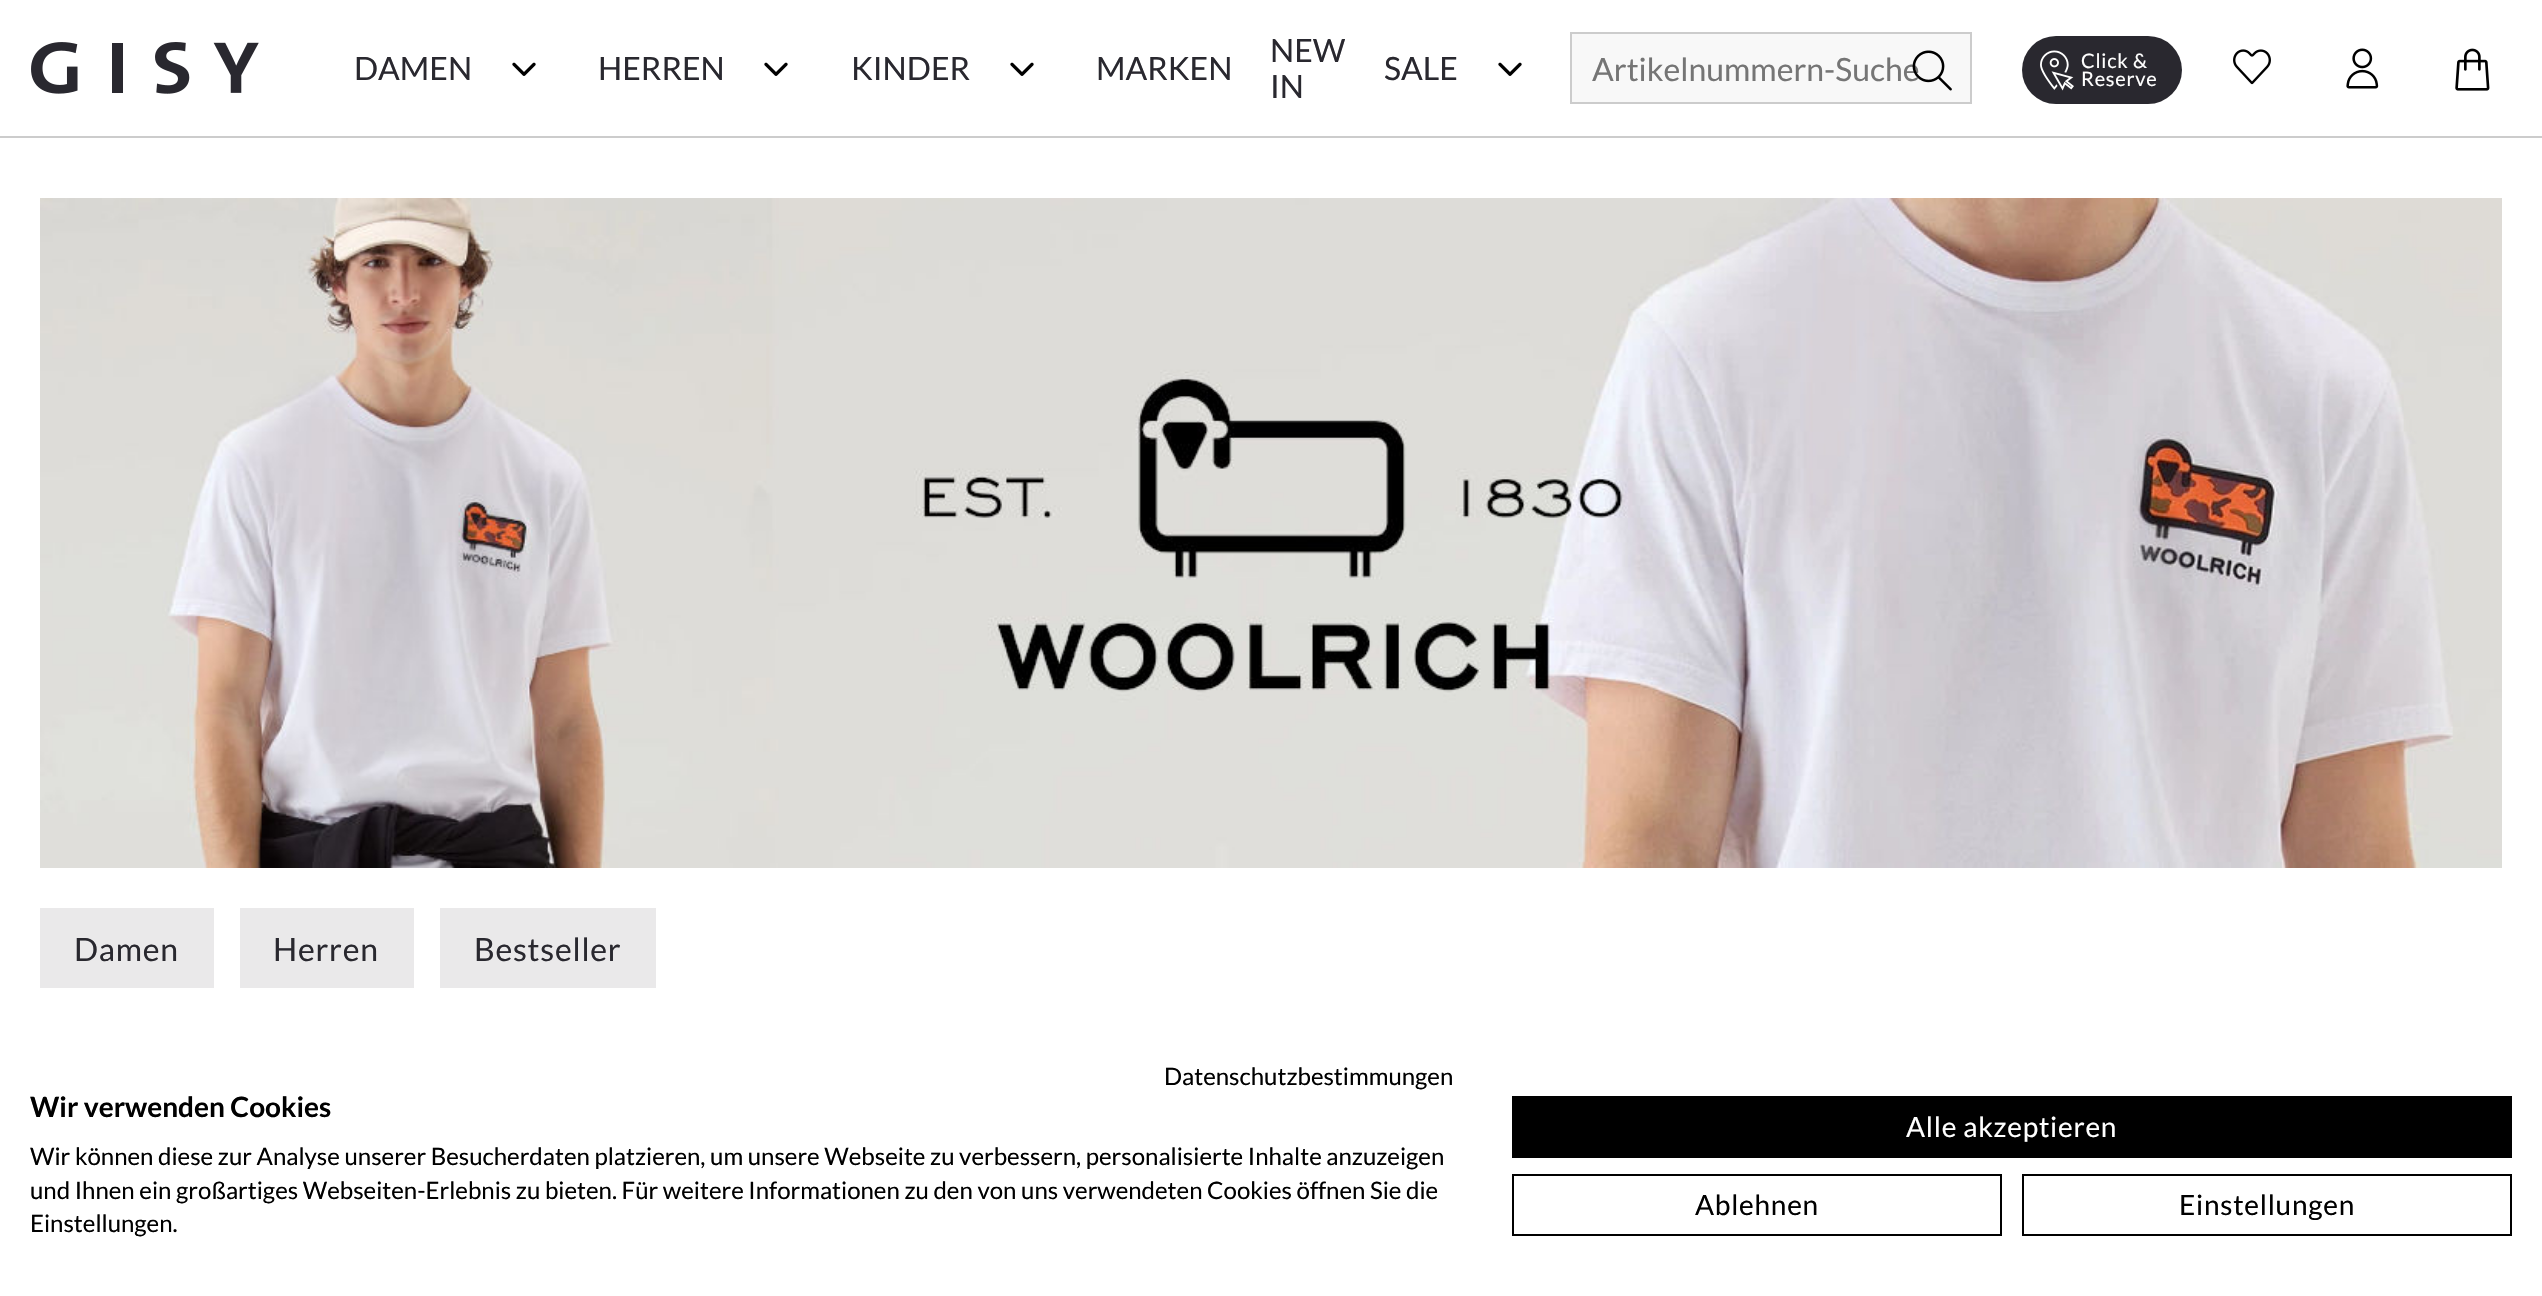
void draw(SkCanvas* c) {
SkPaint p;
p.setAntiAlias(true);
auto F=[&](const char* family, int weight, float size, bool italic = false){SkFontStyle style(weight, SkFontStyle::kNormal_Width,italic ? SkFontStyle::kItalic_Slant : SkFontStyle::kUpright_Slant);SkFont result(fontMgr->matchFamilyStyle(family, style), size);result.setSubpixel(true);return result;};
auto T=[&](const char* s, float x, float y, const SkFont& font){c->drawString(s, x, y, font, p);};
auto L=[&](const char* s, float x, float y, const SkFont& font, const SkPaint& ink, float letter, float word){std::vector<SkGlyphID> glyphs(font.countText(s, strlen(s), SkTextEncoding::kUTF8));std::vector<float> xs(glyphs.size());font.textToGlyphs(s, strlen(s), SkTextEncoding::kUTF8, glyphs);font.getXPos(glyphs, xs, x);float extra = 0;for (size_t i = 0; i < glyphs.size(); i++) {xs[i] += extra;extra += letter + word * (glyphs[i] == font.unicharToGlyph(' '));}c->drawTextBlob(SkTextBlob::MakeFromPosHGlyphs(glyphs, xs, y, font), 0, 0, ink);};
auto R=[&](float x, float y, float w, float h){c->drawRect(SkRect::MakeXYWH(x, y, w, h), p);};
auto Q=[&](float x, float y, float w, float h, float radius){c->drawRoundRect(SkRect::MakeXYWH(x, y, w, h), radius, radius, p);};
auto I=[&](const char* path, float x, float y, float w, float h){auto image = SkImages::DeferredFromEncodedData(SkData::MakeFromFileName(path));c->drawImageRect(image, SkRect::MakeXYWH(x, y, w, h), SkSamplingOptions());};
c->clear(0xffffffff);
p.setColor(0xffcccccc);
R(0,136,2542,2);
I("1.png",31,42,228,52);
auto f1 = F("Lato",400,32);
p.setColor(0xff29282f);
T("DAMEN",354,80,f1);
I("2.png",512,62,24,14);
T("HERREN",598,80,f1);
I("2.png",764,62,24,14);
T("KINDER",851,80,f1);
I("2.png",1010,62,24,14);
T("MARKEN",1096,80,f1);
T("NEW",1270,62,f1);
T("IN",1270,98,f1);
T("SALE",1384,80,f1);
I("2.png",1498,62,24,14);
p.setColor(0xfff8f8f8);
c->drawRect(SkRect::MakeXYWH(1571,33,400,70),p);
p.setStroke(true);
p.setStrokeWidth(2);
p.setColor(0xffcccccc);
c->drawRect(SkRect::MakeXYWH(1571,33,400,70),p);
p.setStroke(false);
p.setColor(0xff757575);
T("Artikelnummern-Suche",1592,81,f1);
I("3.png",1912,50,40,41);
p.setColor(0xff29282f);
Q(2022,36,160,68,34);
I("4.png",2040,50,34,41);
auto f2 = F("Lato",400,20);
p.setColor(0xffffffff);
L("Click &",2081,68,f2,p,.75,0);
L("Reserve",2081,86,f2,p,.75,0);
I("5.png",2233,49,38,36);
I("6.png",2346,48,33,41);
I("7.png",2455,48,35,43);
I("8.png",40,198,2462,670);
p.setColor(0xffeae9ea);
R(40,908,174,80);
p.setColor(0xff29282f);
L("Damen",74,961,f1,p,.75,0);
p.setColor(0xffeae9ea);
R(240,908,174,80);
p.setColor(0xff29282f);
L("Herren",273,961,f1,p,.75,0);
p.setColor(0xffeae9ea);
R(440,908,216,80);
p.setColor(0xff29282f);
L("Bestseller",474,961,f1,p,.75,0);
auto f3 = F("Lato",400,24);
p.setColor(0xff000000);
T("Datenschutzbestimmungen",1164,1085,f3);
auto f4 = F("Lato",700,28);
T("Wir verwenden Cookies",30,1117,f4);
T("Wir können diese zur Analyse unserer Besucherdaten platzieren, um unsere Webseite zu verbessern, personalisierte Inhalte anzuzeigen",30,1165,f3);
T("und Ihnen ein großartiges Webseiten-Erlebnis zu bieten. Für weitere Informationen zu den von uns verwendeten Cookies öffnen Sie die",30,1199,f3);
T("Einstellungen.",30,1232,f3);
R(1512,1096,1000,62);
auto f5 = F("Lato",400,28);
p.setColor(0xffffffff);
L("Alle akzeptieren",1906,1137,f5,p,.75,0);
p.setStroke(true);
p.setColor(0xff000000);
c->drawRect(SkRect::MakeXYWH(1513,1175,488,60),p);
p.setStroke(false);
L("Ablehnen",1695,1215,f5,p,.75,0);
p.setStroke(true);
c->drawRect(SkRect::MakeXYWH(2023,1175,488,60),p);
p.setStroke(false);
L("Einstellungen",2179,1215,f5,p,.75,0);
}
